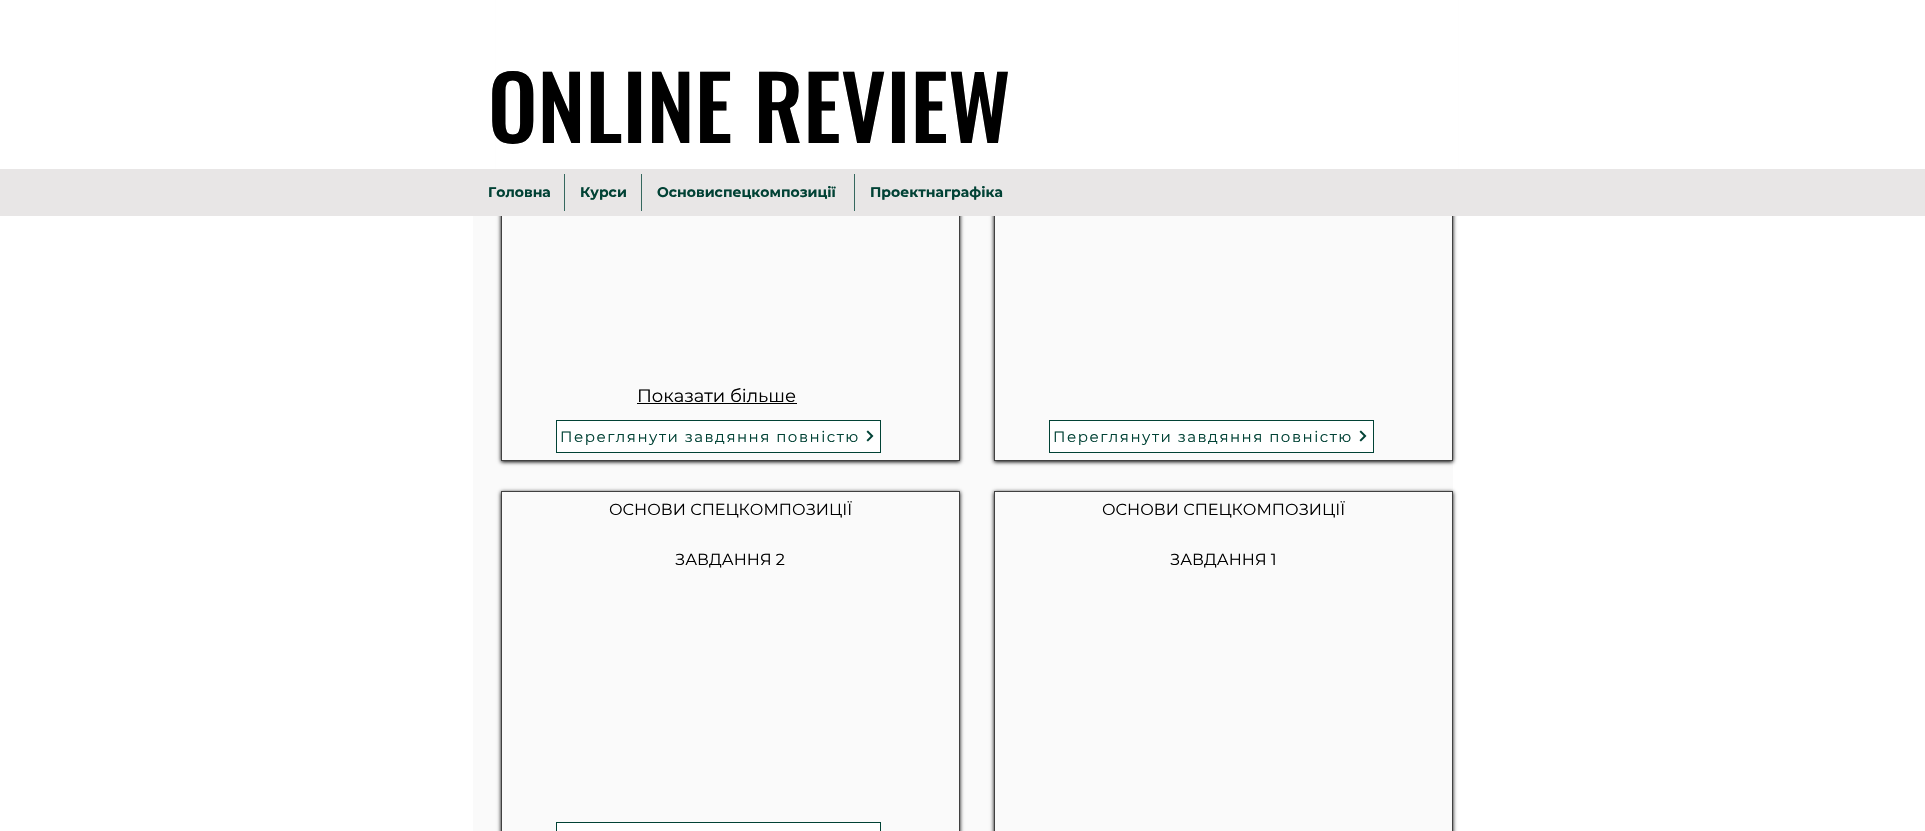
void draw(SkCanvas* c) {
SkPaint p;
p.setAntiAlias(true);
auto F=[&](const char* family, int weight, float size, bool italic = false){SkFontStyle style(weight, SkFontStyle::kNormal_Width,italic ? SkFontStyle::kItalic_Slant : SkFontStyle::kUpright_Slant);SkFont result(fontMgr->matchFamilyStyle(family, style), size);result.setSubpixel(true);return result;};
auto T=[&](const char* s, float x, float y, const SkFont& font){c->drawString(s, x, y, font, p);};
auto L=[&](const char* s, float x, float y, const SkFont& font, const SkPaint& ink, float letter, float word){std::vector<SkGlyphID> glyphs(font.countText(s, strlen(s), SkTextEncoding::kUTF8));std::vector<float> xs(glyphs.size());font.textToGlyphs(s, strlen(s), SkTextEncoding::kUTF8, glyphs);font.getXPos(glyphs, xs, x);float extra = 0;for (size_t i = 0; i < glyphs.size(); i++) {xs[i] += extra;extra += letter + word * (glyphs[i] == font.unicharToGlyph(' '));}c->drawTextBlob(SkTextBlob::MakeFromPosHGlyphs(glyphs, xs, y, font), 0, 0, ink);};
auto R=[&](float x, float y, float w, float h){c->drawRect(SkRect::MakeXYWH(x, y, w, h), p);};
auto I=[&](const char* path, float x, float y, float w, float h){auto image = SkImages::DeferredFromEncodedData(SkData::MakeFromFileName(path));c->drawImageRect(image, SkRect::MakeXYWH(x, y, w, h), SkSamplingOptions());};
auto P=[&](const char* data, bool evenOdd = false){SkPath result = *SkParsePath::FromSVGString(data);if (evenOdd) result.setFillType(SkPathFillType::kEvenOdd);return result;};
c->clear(0xffffffff);
p.setColor(0xfffafafa);
R(473,216,980,615);
c->save();
c->clipPath(P("M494 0h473v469h-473zm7-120h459v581h-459z",true),true);
p.setColor(0xff000000);
p.setMaskFilter(SkMaskFilter::MakeBlur(kNormal_SkBlurStyle, 2));
c->drawRect(SkRect::MakeXYWH(501,-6,459,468),p);
p.setMaskFilter(nullptr);
c->restore();
p.setStroke(true);
p.setStrokeWidth(1);
p.setColor(0xff404040);
c->drawRect(SkRect::MakeXYWH(501.5,-.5,458,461),p);
c->save();
c->clipPath(P("M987 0h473v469h-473zm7-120h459v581h-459z",true),true);
p.setStroke(false);
p.setColor(0xff000000);
p.setMaskFilter(SkMaskFilter::MakeBlur(kNormal_SkBlurStyle, 2));
c->drawRect(SkRect::MakeXYWH(994,-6,459,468),p);
p.setMaskFilter(nullptr);
c->restore();
p.setStroke(true);
p.setColor(0xff404040);
c->drawRect(SkRect::MakeXYWH(994.5,-.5,458,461),p);
p.setStroke(false);
p.setColor(0xffffffff);
R(496,0,962,169);
auto f1 = F("Oswald",500,88);
p.setColor(0xff000000);
T("ONLINE REVIEW",488,143,f1);
p.setColor(0xffe8e6e6);
R(0,169,1925,47);
auto f2 = F("Montserrat",700,14);
p.setColor(0xff014235);
T("Головна",488,197,f2);
p.setColor(0xff35685e);
R(564,174,1,37);
p.setColor(0xff014235);
T("Курси",580,197,f2);
p.setColor(0xff35685e);
R(641,174,1,37);
p.setColor(0xff014235);
T("Основи спецкомпозиції",657,197,f2);
p.setColor(0xff35685e);
R(854,174,1,37);
p.setColor(0xff014235);
T("Проектна графіка",870,197,f2);
auto f3 = F("Montserrat",400,18);
p.setColor(0xff000000);
T("Показати більше",637,402,f3);
R(637,403,160,1);
p.setColor(0xffffffff);
c->drawRect(SkRect::MakeXYWH(556.5,420.5,324,32),p);
p.setStroke(true);
p.setColor(0xff014235);
c->drawRect(SkRect::MakeXYWH(556.5,420.5,324,32),p);
auto f4 = F("Montserrat",400,15);
p.setStroke(false);
L("Переглянути завдяння повністю",560,442,f4,p,1.5,0);
I("1.png",866,430,8,12);
c->save();
c->clipPath(P("M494 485h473v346h-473zm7 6h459v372h-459z",true),true);
p.setColor(0xff000000);
p.setMaskFilter(SkMaskFilter::MakeBlur(kNormal_SkBlurStyle, 2));
c->drawRect(SkRect::MakeXYWH(501,492,459,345),p);
p.setMaskFilter(nullptr);
c->restore();
p.setStroke(true);
p.setColor(0xff404040);
c->drawRect(SkRect::MakeXYWH(501.5,491.5,458,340),p);
auto f5 = F("Montserrat",400,16);
p.setStroke(false);
p.setColor(0xff000000);
T("ОСНОВИ СПЕЦКОМПОЗИЦІЇ",609,515,f5);
T("ЗАВДАННЯ 2",675,565,f5);
p.setColor(0xffffffff);
c->drawRect(SkRect::MakeXYWH(556.5,822.5,324,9),p);
p.setStroke(true);
p.setColor(0xff014235);
c->drawRect(SkRect::MakeXYWH(556.5,822.5,324,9),p);
p.setStroke(false);
p.setColor(0xffffffff);
c->drawRect(SkRect::MakeXYWH(1049.5,420.5,324,32),p);
p.setStroke(true);
p.setColor(0xff014235);
c->drawRect(SkRect::MakeXYWH(1049.5,420.5,324,32),p);
p.setStroke(false);
L("Переглянути завдяння повністю",1053,442,f4,p,1.5,0);
I("1.png",1359,430,8,12);
c->save();
c->clipPath(P("M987 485h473v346h-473zm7 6h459v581h-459z",true),true);
p.setColor(0xff000000);
p.setMaskFilter(SkMaskFilter::MakeBlur(kNormal_SkBlurStyle, 2));
c->drawRect(SkRect::MakeXYWH(994,492,459,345),p);
p.setMaskFilter(nullptr);
c->restore();
p.setStroke(true);
p.setColor(0xff404040);
c->drawRect(SkRect::MakeXYWH(994.5,491.5,458,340),p);
p.setStroke(false);
p.setColor(0xff000000);
T("ОСНОВИ СПЕЦКОМПОЗИЦІЇ",1102,515,f5);
T("ЗАВДАННЯ 1",1170,565,f5);
}
